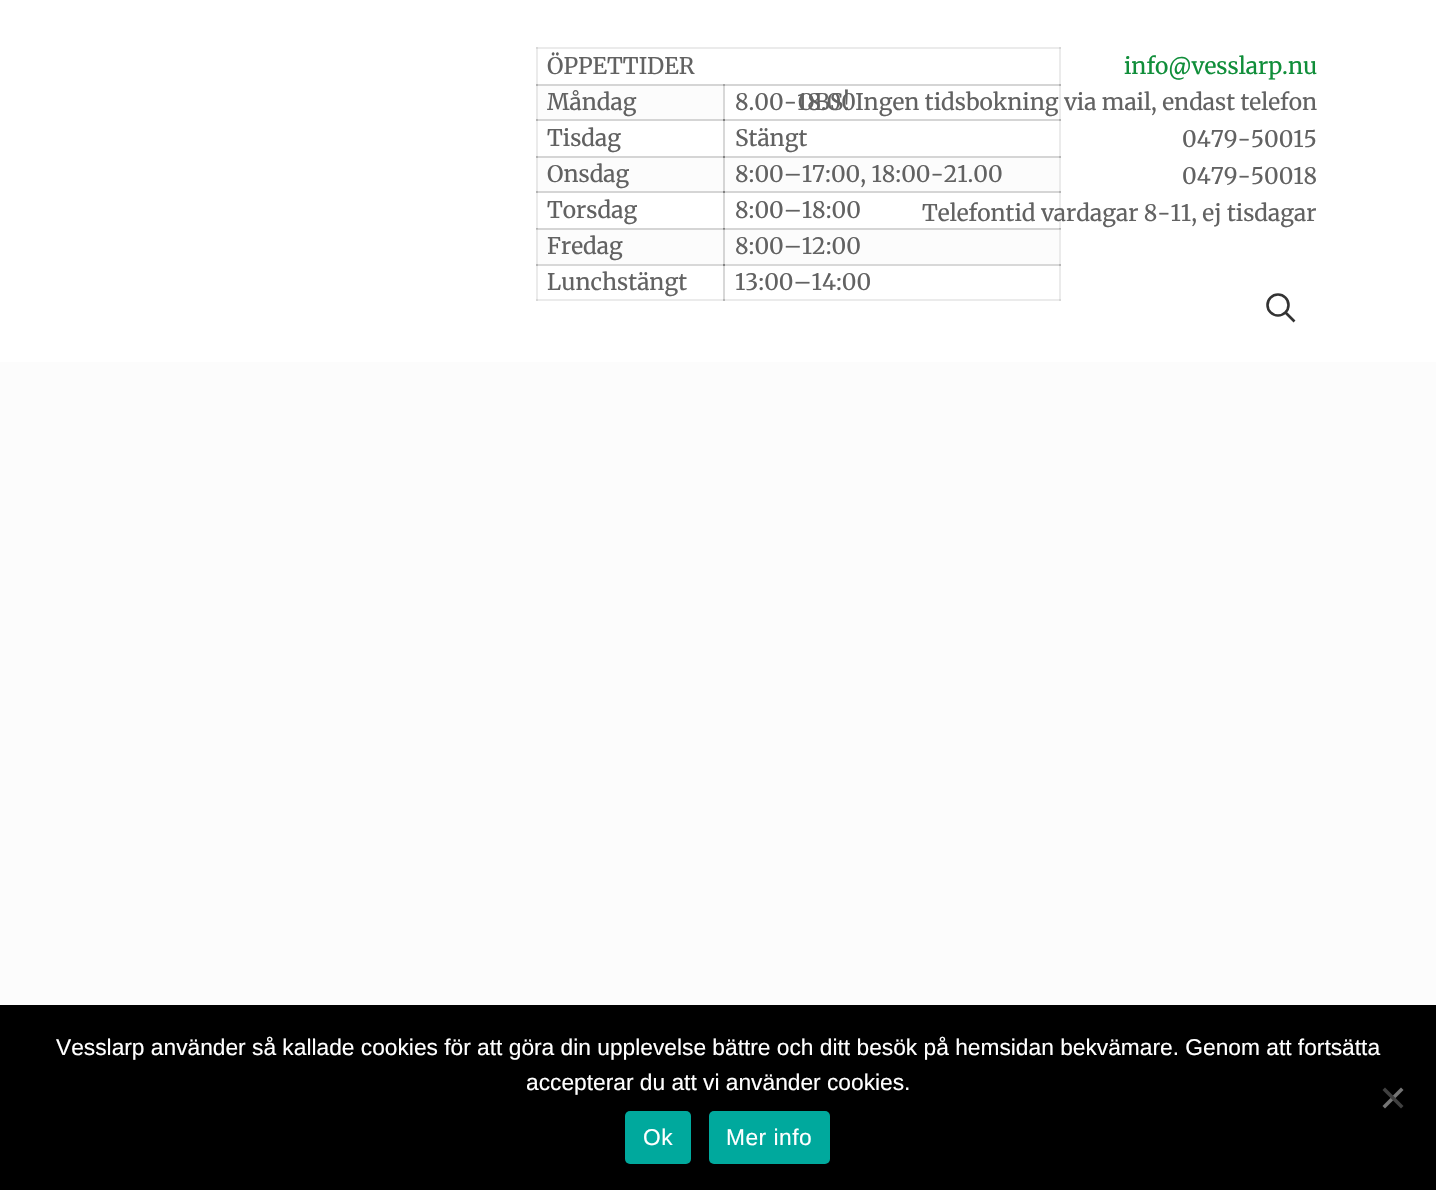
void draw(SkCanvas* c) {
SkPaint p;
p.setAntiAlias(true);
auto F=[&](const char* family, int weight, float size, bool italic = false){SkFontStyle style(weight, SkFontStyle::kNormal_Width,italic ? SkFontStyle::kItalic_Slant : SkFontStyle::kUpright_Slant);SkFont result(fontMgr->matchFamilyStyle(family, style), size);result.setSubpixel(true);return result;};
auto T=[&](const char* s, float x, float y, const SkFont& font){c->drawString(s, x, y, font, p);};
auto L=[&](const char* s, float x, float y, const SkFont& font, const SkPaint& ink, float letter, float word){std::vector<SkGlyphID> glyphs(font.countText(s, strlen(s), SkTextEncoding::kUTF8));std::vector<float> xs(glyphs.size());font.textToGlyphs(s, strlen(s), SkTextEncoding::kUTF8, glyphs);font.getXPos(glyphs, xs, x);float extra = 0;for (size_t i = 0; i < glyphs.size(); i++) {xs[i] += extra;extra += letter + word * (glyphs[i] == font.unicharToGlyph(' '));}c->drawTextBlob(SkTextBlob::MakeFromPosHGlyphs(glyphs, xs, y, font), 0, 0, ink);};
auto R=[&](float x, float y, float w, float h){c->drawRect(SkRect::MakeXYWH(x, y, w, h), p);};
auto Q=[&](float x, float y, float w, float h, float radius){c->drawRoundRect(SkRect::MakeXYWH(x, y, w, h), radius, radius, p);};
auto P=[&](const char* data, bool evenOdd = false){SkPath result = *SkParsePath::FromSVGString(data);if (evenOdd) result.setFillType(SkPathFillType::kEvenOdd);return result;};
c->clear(0xfffcfcfc);
p.setColor(0xffffffff);
R(0,0,1436,362);
p.setColor(0xffebebeb);
R(1059,156,2,2);
R(1059,191,2,2);
R(1059,228,2,38);
p.setColor(0xffd8d8d8);
R(1059,228,2,2);
p.setColor(0xffebebeb);
R(536,264,2,37);
R(536,299,189,2);
p.setColor(0xffd8d8d8);
R(536,299,2,2);
R(536,264,189,2);
p.setColor(0xffb7b7b7);
R(536,264,2,2);
p.setColor(0xffd8d8d8);
R(723,264,2,37);
p.setColor(0xffebebeb);
R(723,299,338,2);
p.setColor(0xffb7b7b7);
R(723,299,2,2);
p.setColor(0xffebebeb);
R(1059,264,2,37);
p.setColor(0xffd8d8d8);
R(1059,299,2,2);
p.setColor(0xffebebeb);
R(536,47,525,2);
p.setColor(0xffe8e8e8);
R(723,84,338,2);
R(723,119,338,2);
p.setColor(0x14000000);
R(1059,191,2,38);
R(1059,156,2,37);
R(1059,119,2,39);
R(1059,84,2,37);
R(1059,47,2,39);
p.setColor(0xfffcfcfc);
R(536,84,187,37);
R(536,156,187,37);
p.setColor(0xffe8e8e8);
R(723,156,336,2);
p.setColor(0xfffcfcfc);
R(723,158,336,33);
p.setColor(0xffe8e8e8);
R(723,191,336,2);
p.setColor(0xffd5d5d5);
R(723,228,2,36);
p.setColor(0xffe8e8e8);
R(723,228,336,2);
p.setColor(0xffb4b4b4);
R(723,228,2,2);
p.setColor(0x14000000);
R(723,228,338,2);
R(723,191,2,38);
R(536,191,189,2);
R(723,191,2,38);
R(723,191,338,2);
R(723,156,2,37);
R(536,156,189,2);
R(723,156,2,37);
R(723,156,338,2);
R(723,119,2,39);
R(536,119,189,2);
R(723,119,2,39);
R(723,119,338,2);
R(723,84,2,37);
R(536,84,189,2);
R(723,84,2,37);
p.setColor(0xffe8e8e8);
R(536,228,2,36);
R(536,228,187,2);
p.setColor(0xffd5d5d5);
R(536,228,2,2);
p.setColor(0x14000000);
R(536,228,189,2);
R(536,191,2,38);
R(536,191,189,2);
R(536,156,2,37);
R(536,156,189,2);
R(536,119,2,39);
R(536,119,189,2);
R(536,84,2,37);
R(536,84,525,2);
R(536,47,2,39);
auto f1 = F("Merriweather",400,22.75);
p.setColor(0xff626262);
T("ÖPPETTIDER",547,74,f1);
T("Måndag",547,110,f1);
T("OBS! Ingen tidsbokning via mail, endast telefon",798,110,f1);
T("8.00-18.00",735,110,f1);
T("Tisdag",547,146,f1);
T("Stängt",735,146,f1);
T("Onsdag",547,182,f1);
T("8:00–17:00, 18:00-21.00",735,182,f1);
T("Torsdag",547,218,f1);
T("8:00–18:00",735,218,f1);
p.setColor(0xfffcfcfc);
R(538,230,185,34);
p.setColor(0xff626262);
T("Fredag",547,254,f1);
p.setColor(0xfffcfcfc);
R(725,230,334,34);
p.setColor(0xff626262);
T("8:00–12:00",735,254,f1);
T("Lunchstängt",547,290,f1);
p.setColor(0xffd8d8d8);
R(723,264,338,2);
p.setColor(0xff848484);
R(723,264,2,2);
p.setColor(0xffb7b7b7);
R(1059,264,2,2);
p.setColor(0xff626262);
T("13:00–14:00",735,290,f1);
p.setColor(0xff108e3a);
T("info@vesslarp.nu",1124,74,f1);
p.setColor(0xff626262);
T("0479-50015",1182,147,f1);
T("0479-50018",1182,184,f1);
T("Telefontid vardagar 8-11, ej tisdagar",922,221,f1);
p.setStroke(true);
p.setStrokeWidth(2.6);
p.setColor(0xff333333);
c->drawCircle(1278,305,10.5,p);
c->drawPath(P("M1285.5 312.5l9 9"),p);
p.setStroke(false);
p.setColor(0xff000000);
R(0,1005,1436,185);
auto f2 = F("Liberation Sans",400,22.75);
p.setColor(0xffffffff);
T("Vesslarp använder så kallade cookies för att göra din upplevelse bättre och ditt besök på hemsidan bekvämare. Genom att fortsätta",56,1055,f2);
T("accepterar du att vi använder cookies.",526,1090,f2);
p.setColor(0xff757575);
c->drawPath(P("M1401 1087.5l2.5 2.5l-18.5 18.5l-2.5-2.5z"),p);
p.setColor(0xff404040);
c->drawPath(P("M1382.5 1090l2.5-2.5l18.5 18.5l-2.5 2.5z"),p);
p.setColor(0xff00a99d);
Q(625,1111,66,53,5);
p.setColor(0xffffffff);
L("Ok",643,1145,f2,p,.5,0);
p.setColor(0xff00a99d);
Q(709,1111,121,53,5);
p.setColor(0xffffffff);
L("Mer info",726,1145,f2,p,.5,0);
}
